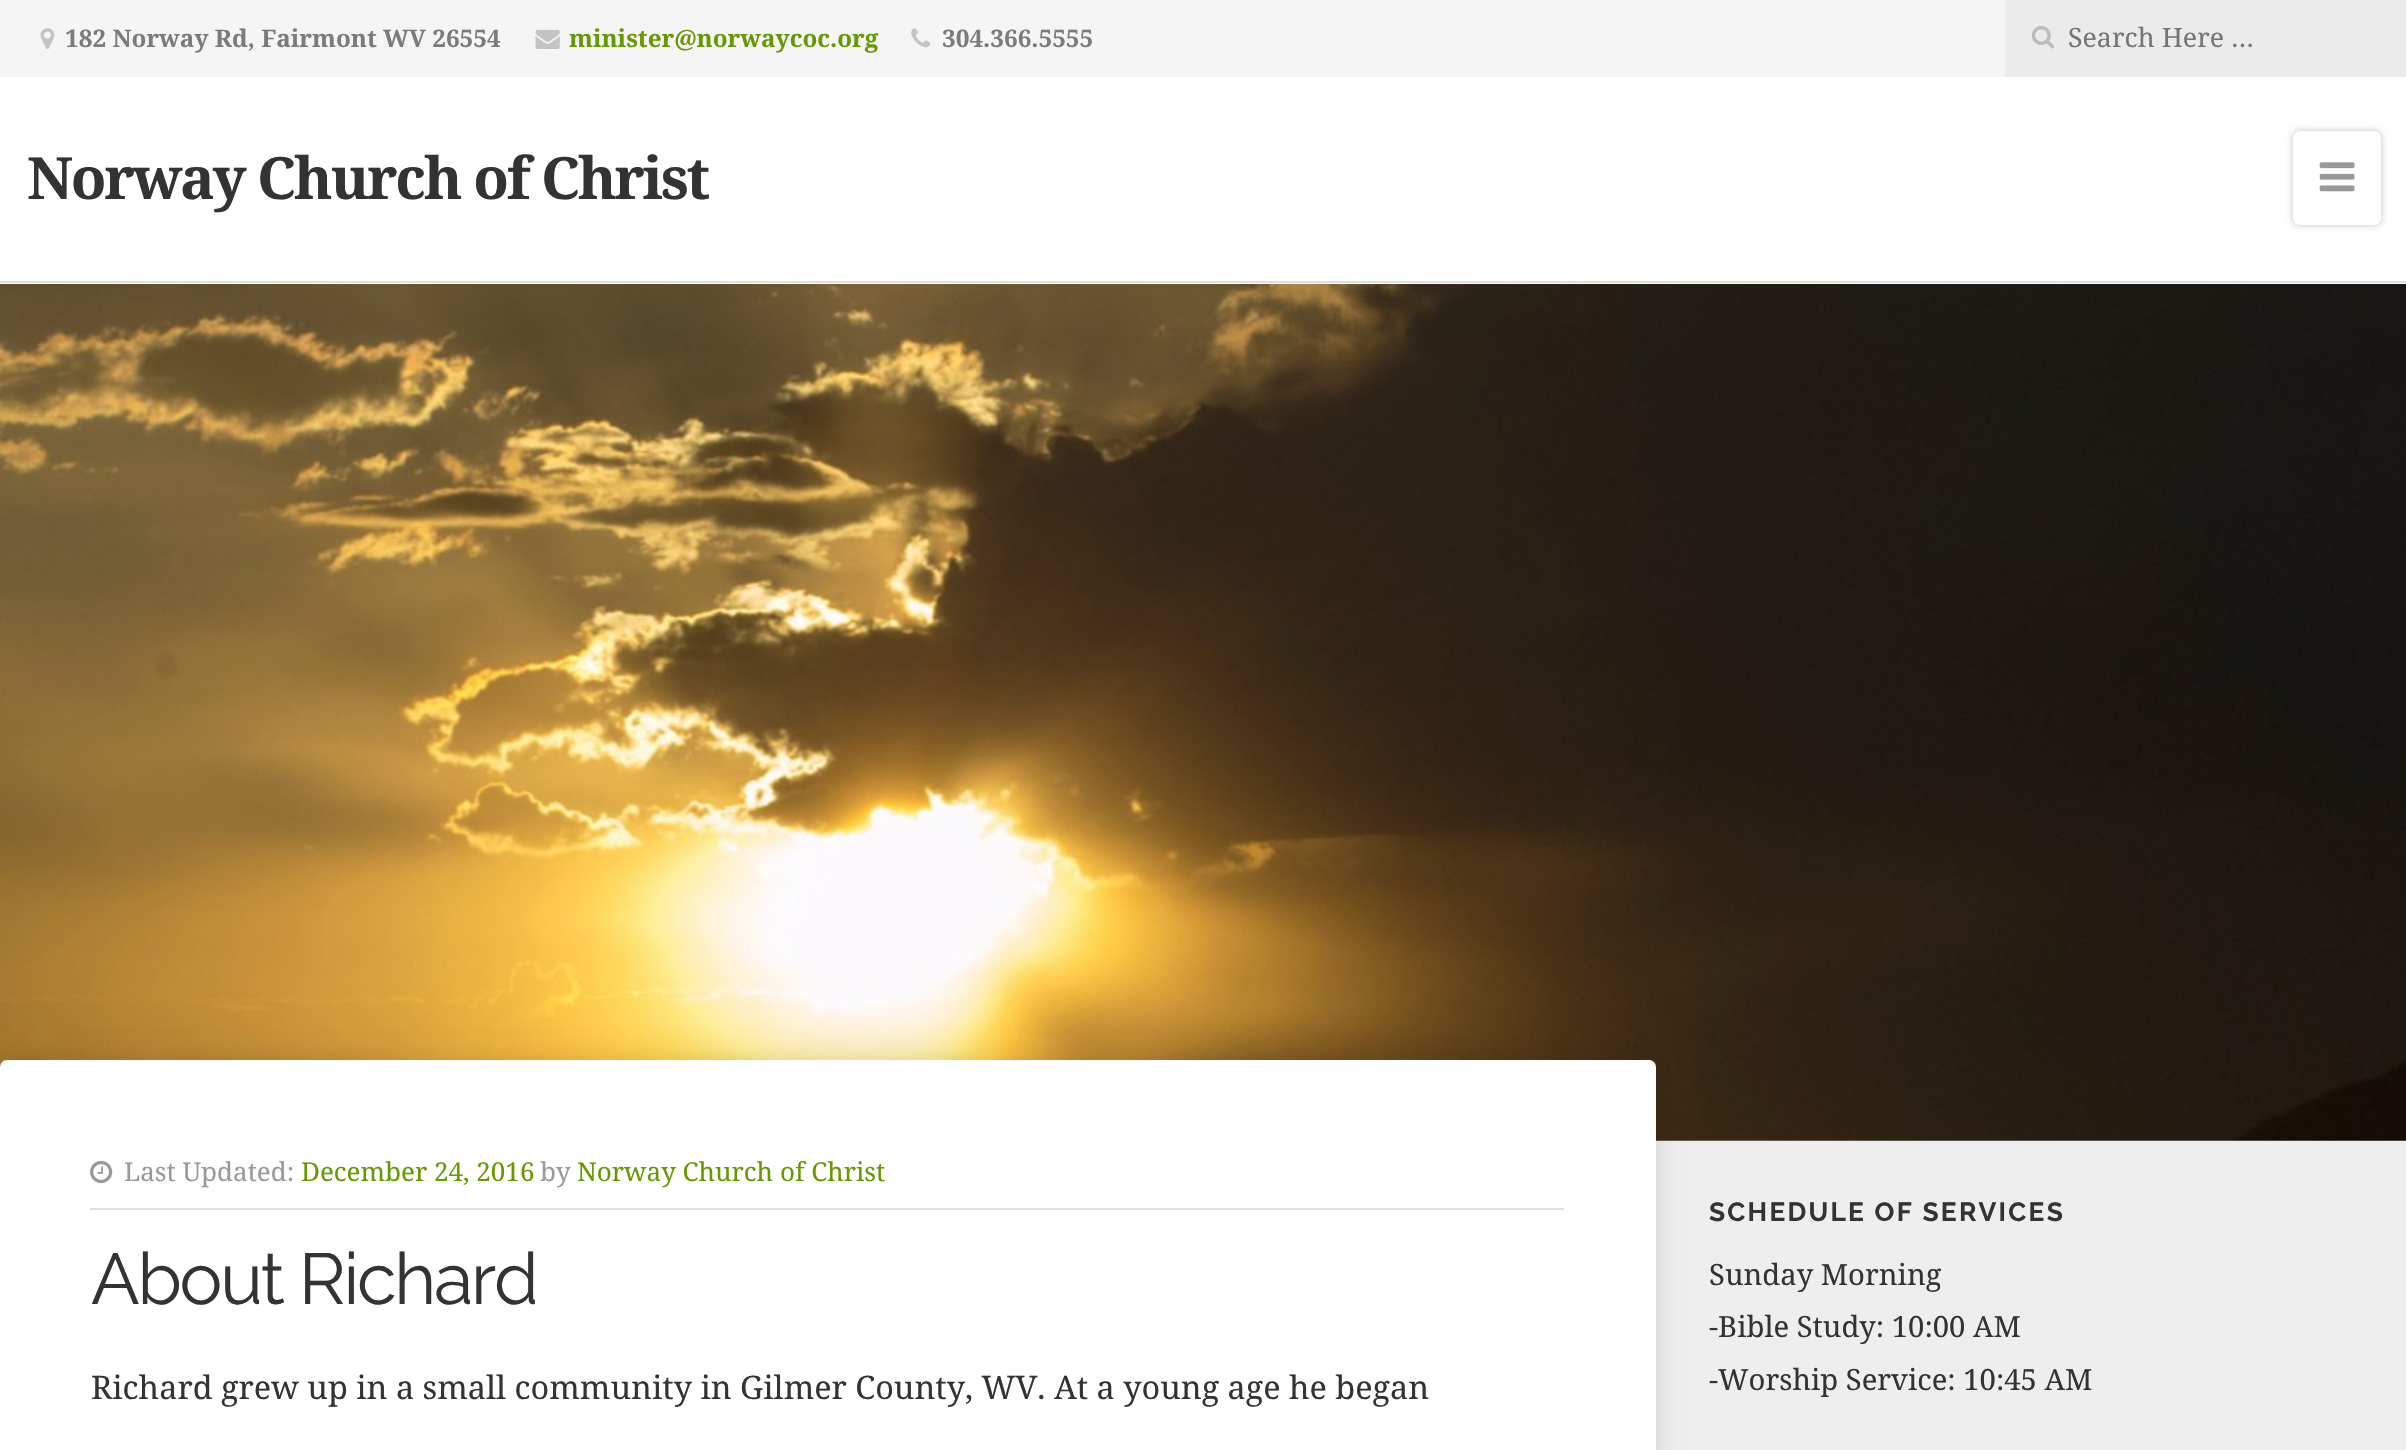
void draw(SkCanvas* c) {
SkPaint p;
p.setAntiAlias(true);
auto F=[&](const char* family, int weight, float size, bool italic = false){SkFontStyle style(weight, SkFontStyle::kNormal_Width,italic ? SkFontStyle::kItalic_Slant : SkFontStyle::kUpright_Slant);SkFont result(fontMgr->matchFamilyStyle(family, style), size);result.setSubpixel(true);return result;};
auto T=[&](const char* s, float x, float y, const SkFont& font){c->drawString(s, x, y, font, p);};
auto L=[&](const char* s, float x, float y, const SkFont& font, const SkPaint& ink, float letter, float word){std::vector<SkGlyphID> glyphs(font.countText(s, strlen(s), SkTextEncoding::kUTF8));std::vector<float> xs(glyphs.size());font.textToGlyphs(s, strlen(s), SkTextEncoding::kUTF8, glyphs);font.getXPos(glyphs, xs, x);float extra = 0;for (size_t i = 0; i < glyphs.size(); i++) {xs[i] += extra;extra += letter + word * (glyphs[i] == font.unicharToGlyph(' '));}c->drawTextBlob(SkTextBlob::MakeFromPosHGlyphs(glyphs, xs, y, font), 0, 0, ink);};
auto R=[&](float x, float y, float w, float h){c->drawRect(SkRect::MakeXYWH(x, y, w, h), p);};
auto Q=[&](float x, float y, float w, float h, float radius){c->drawRoundRect(SkRect::MakeXYWH(x, y, w, h), radius, radius, p);};
auto I=[&](const char* path, float x, float y, float w, float h){auto image = SkImages::DeferredFromEncodedData(SkData::MakeFromFileName(path));c->drawImageRect(image, SkRect::MakeXYWH(x, y, w, h), SkSamplingOptions());};
c->clear(0xffeeeeee);
p.setColor(0xffffffff);
R(0,77,2406,207);
p.setColor(0xffe0e0e0);
R(0,281,2406,2);
p.setColor(0xfff5f5f5);
R(0,0,2005,77);
I("1.png",40,28,15,21);
auto f1 = F("Noto Serif",700,24.25);
p.setColor(0xff7b7b7b);
T("182 Norway Rd, Fairmont WV 26554",65,47,f1);
I("2.png",535,29,25,20);
p.setColor(0xff669900);
T("minister@norwaycoc.org",569,47,f1);
I("3.png",911,28,20,20);
p.setColor(0xff7b7b7b);
T("304.366.5555",942,47,f1);
p.setColor(0xffebebeb);
R(2005,0,401,77);
I("4.png",2032,26,23,23);
auto f2 = F("Noto Serif",400,26.75);
p.setColor(0xff757575);
T("Search Here …",2068,47,f2);
auto f3 = F("Noto Serif",700,58.25);
p.setColor(0xff333333);
L("Norway Church of Christ",27,199,f3,p,-2.25,0);
p.setColor(0x3d000000);
p.setMaskFilter(SkMaskFilter::MakeBlur(kNormal_SkBlurStyle, 3.5));
c->drawRoundRect(SkRect::MakeXYWH(2293,131,88,94),7,7,p);
p.setMaskFilter(nullptr);
p.setColor(0xffffffff);
Q(2293,131,88,94,7);
I("5.png",2319,162,36,30);
I("6.png",0,284,2406,857);
p.setColor(0x1f000000);
p.setMaskFilter(SkMaskFilter::MakeBlur(kNormal_SkBlurStyle, 13.5));
c->drawRoundRect(SkRect::MakeXYWH(0,1060,1656,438),7,7,p);
p.setMaskFilter(nullptr);
p.setColor(0xffffffff);
Q(0,1060,1656,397,7);
p.setColor(0xffe0e0e0);
R(90,1208,1474,2);
I("7.png",90,1160,23,24);
auto f4 = F("Noto Serif",400,26);
p.setColor(0xff999999);
T("Last Updated:",124,1181,f4);
p.setColor(0xff669900);
T("December 24, 2016",301,1181,f4);
p.setColor(0xff999999);
T("by",540,1181,f4);
p.setColor(0xff669900);
T("Norway Church of Christ",577,1181,f4);
auto f5 = F("Raleway",400,72);
p.setColor(0xff333333);
L("About Richard",91,1304,f5,p,-2.25,0);
auto f6 = F("Noto Serif",400,32.4);
T("Richard grew up in a small community in Gilmer County, WV. At a young age he began",91,1399,f6);
auto f7 = F("Raleway",700,26.25);
L("SCHEDULE OF SERVICES",1709,1221,f7,p,2.25,0);
auto f8 = F("Noto Serif",400,29.2);
T("Sunday Morning",1709,1285,f8);
T("-Bible Study: 10:00 AM",1709,1337,f8);
T("-Worship Service: 10:45 AM",1709,1390,f8);
}
